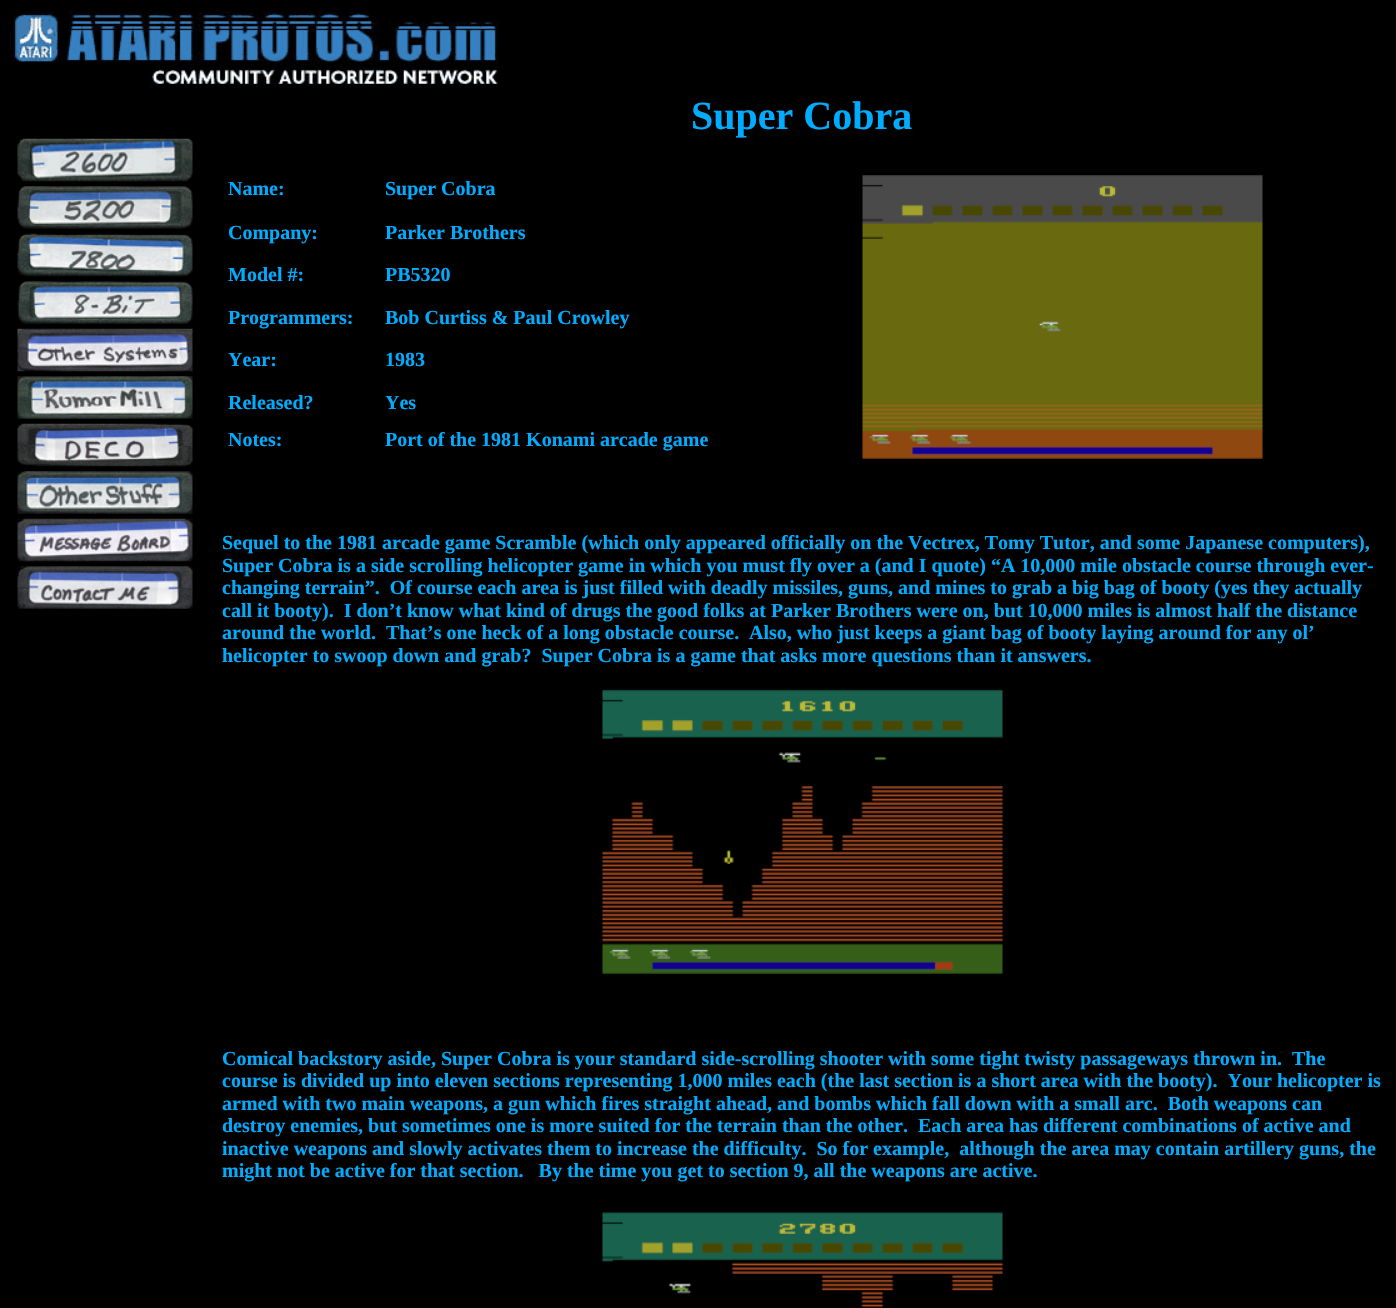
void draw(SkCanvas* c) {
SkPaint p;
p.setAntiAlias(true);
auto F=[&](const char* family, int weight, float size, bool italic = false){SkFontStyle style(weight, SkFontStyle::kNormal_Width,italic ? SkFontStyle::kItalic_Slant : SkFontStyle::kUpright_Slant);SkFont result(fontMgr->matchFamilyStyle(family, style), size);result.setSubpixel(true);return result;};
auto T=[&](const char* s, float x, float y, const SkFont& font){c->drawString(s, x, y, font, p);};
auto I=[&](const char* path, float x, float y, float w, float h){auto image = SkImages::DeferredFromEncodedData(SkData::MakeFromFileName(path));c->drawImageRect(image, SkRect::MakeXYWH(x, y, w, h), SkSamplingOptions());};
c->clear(0xff000000);
I("1.png",10,11,489,78);
I("2.png",17,138,176,44);
I("3.png",17,186,176,43);
I("4.png",17,233,176,44);
I("5.png",17,281,176,43);
I("6.png",17,328,176,44);
I("7.png",17,376,176,43);
I("8.png",17,423,176,44);
I("9.png",17,471,176,43);
I("10.png",17,518,176,44);
I("11.png",17,566,176,43);
auto f1 = F("Liberation Serif",700,40);
p.setColor(0xff01acfe);
T("Super Cobra",691,129,f1);
auto f2 = F("Liberation Serif",700,20);
T("Name:",228,195,f2);
T("Super Cobra",385,195,f2);
I("12.png",862,175,401,284);
T("Company:",228,239,f2);
T("Parker Brothers",385,239,f2);
T("Model #:",228,281,f2);
T("PB5320",385,281,f2);
T("Programmers:",228,324,f2);
T("Bob Curtiss & Paul Crowley",385,324,f2);
T("Year:",228,366,f2);
T("1983",385,366,f2);
T("Released?",228,409,f2);
T("Yes",385,409,f2);
T("Notes:",228,446,f2);
T("Port of the 1981 Konami arcade game",385,446,f2);
T("Sequel to the 1981 arcade game Scramble (which only appeared officially on the Vectrex, Tomy Tutor, and some Japanese computers),",222,549,f2);
T("Super Cobra is a side scrolling helicopter game in which you must fly over a (and I quote) “A 10,000 mile obstacle course through ever-",222,572,f2);
T("changing terrain”.  Of course each area is just filled with deadly missiles, guns, and mines to grab a big bag of booty (yes they actually",222,594,f2);
T("call it booty).  I don’t know what kind of drugs the good folks at Parker Brothers were on, but 10,000 miles is almost half the distance",222,617,f2);
T("around the world.  That’s one heck of a long obstacle course.",222,639,f2);
T("Also, who just keeps a giant bag of booty laying around for any ol’",749,639,f2);
T("helicopter to swoop down and grab?  Super Cobra is a game that asks more questions than it answers.",222,662,f2);
I("13.png",602,689,401,285);
T("Comical backstory aside, Super Cobra is your standard side-scrolling shooter with some tight twisty passageways thrown in.  The",222,1065,f2);
T("course is divided up into eleven sections representing 1,000 miles each (the last section is a short area with the booty).  Your helicopter is",222,1087,f2);
T("armed with two main weapons, a gun which fires straight ahead, and bombs which fall down with a small arc.  Both weapons can",222,1110,f2);
T("destroy enemies, but sometimes one is more suited for the terrain than the other.",222,1132,f2);
T("Each area has different combinations of active and",918,1132,f2);
T("inactive weapons and slowly activates them to increase the difficulty.  So for example,  although the area may contain artillery guns, the",222,1155,f2);
T("might not be active for that section.   By the time you get to section 9, all the weapons are active.",222,1177,f2);
I("14.png",602,1212,401,96);
}
